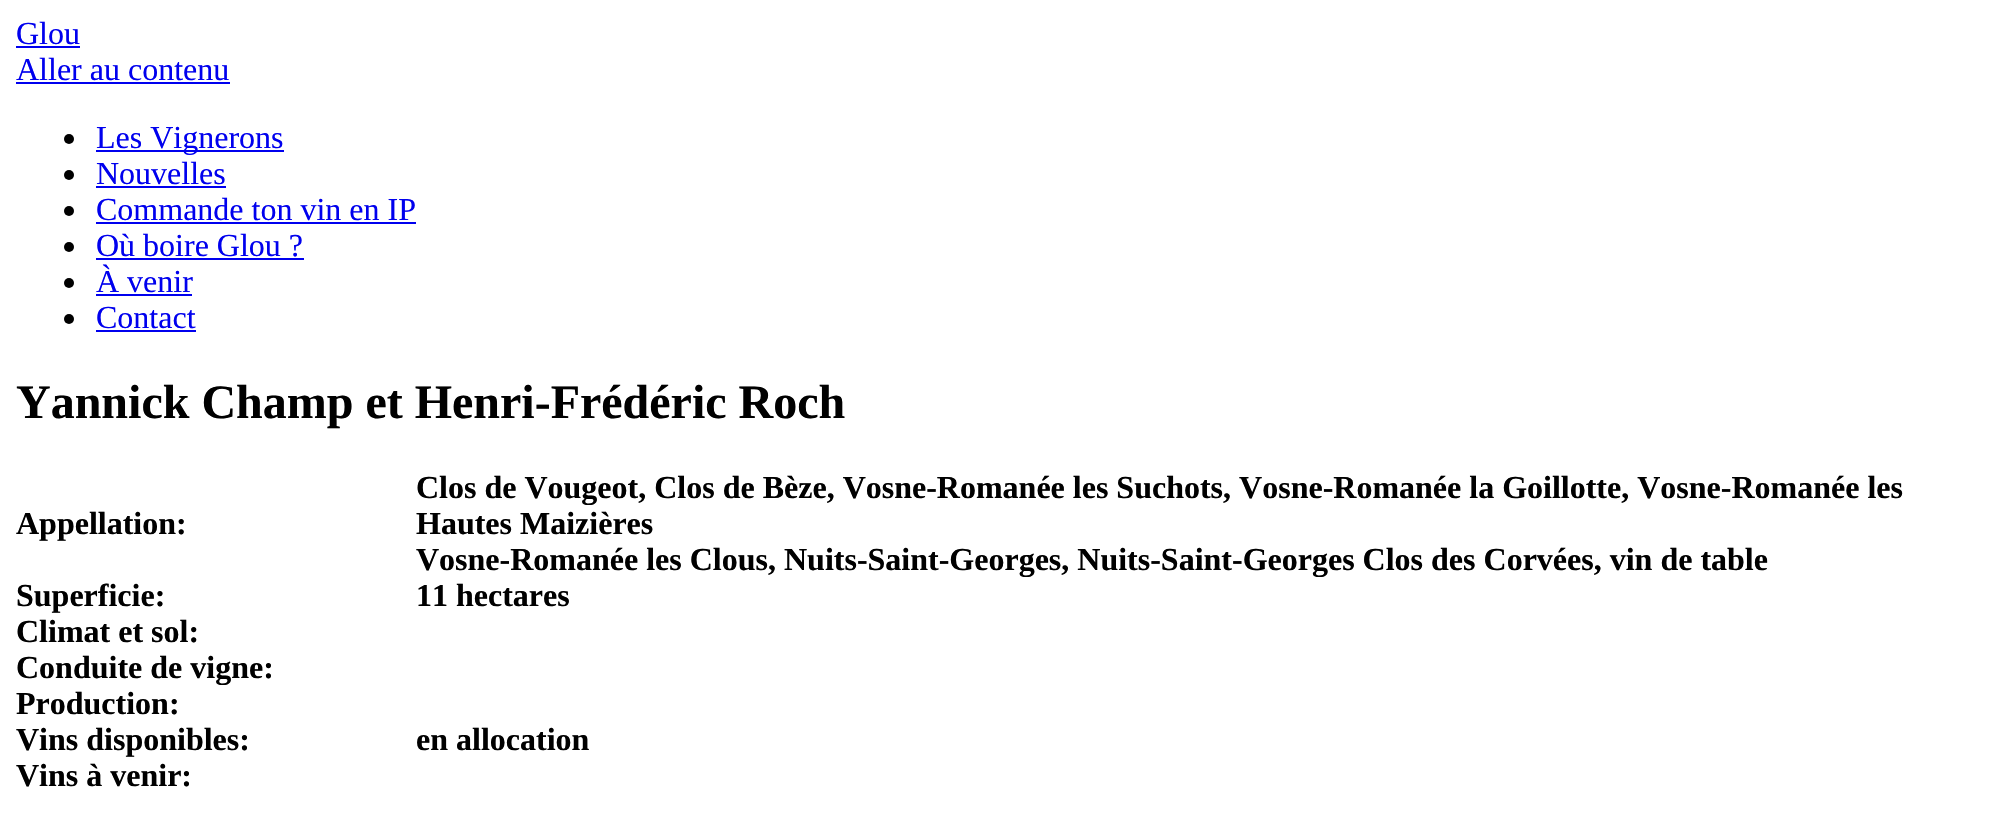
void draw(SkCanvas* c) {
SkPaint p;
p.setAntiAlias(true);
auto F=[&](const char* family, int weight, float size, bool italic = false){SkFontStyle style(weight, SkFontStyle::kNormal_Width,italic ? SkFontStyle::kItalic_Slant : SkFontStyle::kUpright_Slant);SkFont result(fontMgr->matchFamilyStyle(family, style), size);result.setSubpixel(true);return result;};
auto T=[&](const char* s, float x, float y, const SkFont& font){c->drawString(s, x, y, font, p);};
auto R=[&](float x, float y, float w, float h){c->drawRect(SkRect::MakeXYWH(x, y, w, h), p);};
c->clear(0xffffffff);
auto f1 = F("Liberation Serif",400,32);
p.setColor(0xff0000ee);
T("Glou",16,44,f1);
R(16,46,64,2);
T("Aller au contenu",16,80,f1);
R(16,82,214,2);
p.setColor(0xff000000);
c->drawCircle(69,139,5,p);
p.setColor(0xff0000ee);
R(96,150,188,2);
T("Les Vignerons",96,148,f1);
p.setColor(0xff000000);
c->drawCircle(69,175,5,p);
p.setColor(0xff0000ee);
T("Nouvelles",96,184,f1);
R(96,186,130,2);
p.setColor(0xff000000);
c->drawCircle(69,211,5,p);
p.setColor(0xff0000ee);
T("Commande ton vin en IP",96,220,f1);
R(96,222,320,2);
p.setColor(0xff000000);
c->drawCircle(69,247,5,p);
p.setColor(0xff0000ee);
T("Où boire Glou ?",96,256,f1);
R(96,258,208,2);
p.setColor(0xff000000);
c->drawCircle(69,283,5,p);
p.setColor(0xff0000ee);
T("À venir",96,292,f1);
R(96,294,96,2);
p.setColor(0xff000000);
c->drawCircle(69,319,5,p);
p.setColor(0xff0000ee);
T("Contact",96,328,f1);
R(96,330,100,2);
auto f2 = F("Liberation Serif",700,48);
p.setColor(0xff000000);
T("Yannick Champ et Henri-Frédéric Roch",16,418,f2);
auto f3 = F("Liberation Serif",700,32);
T("Appellation:",16,534,f3);
T("Clos de Vougeot, Clos de Bèze, Vosne-Romanée les Suchots, Vosne-Romanée la Goillotte, Vosne-Romanée les",416,498,f3);
T("Hautes Maizières",416,534,f3);
T("Vosne-Romanée les Clous, Nuits-Saint-Georges, Nuits-Saint-Georges Clos des Corvées, vin de table",416,570,f3);
T("Superficie:",16,606,f3);
T("11 hectares",416,606,f3);
T("Climat et sol:",16,642,f3);
T("Conduite de vigne:",16,678,f3);
T("Production:",16,714,f3);
T("Vins disponibles:",16,750,f3);
T("en allocation",416,750,f3);
T("Vins à venir:",16,786,f3);
}
